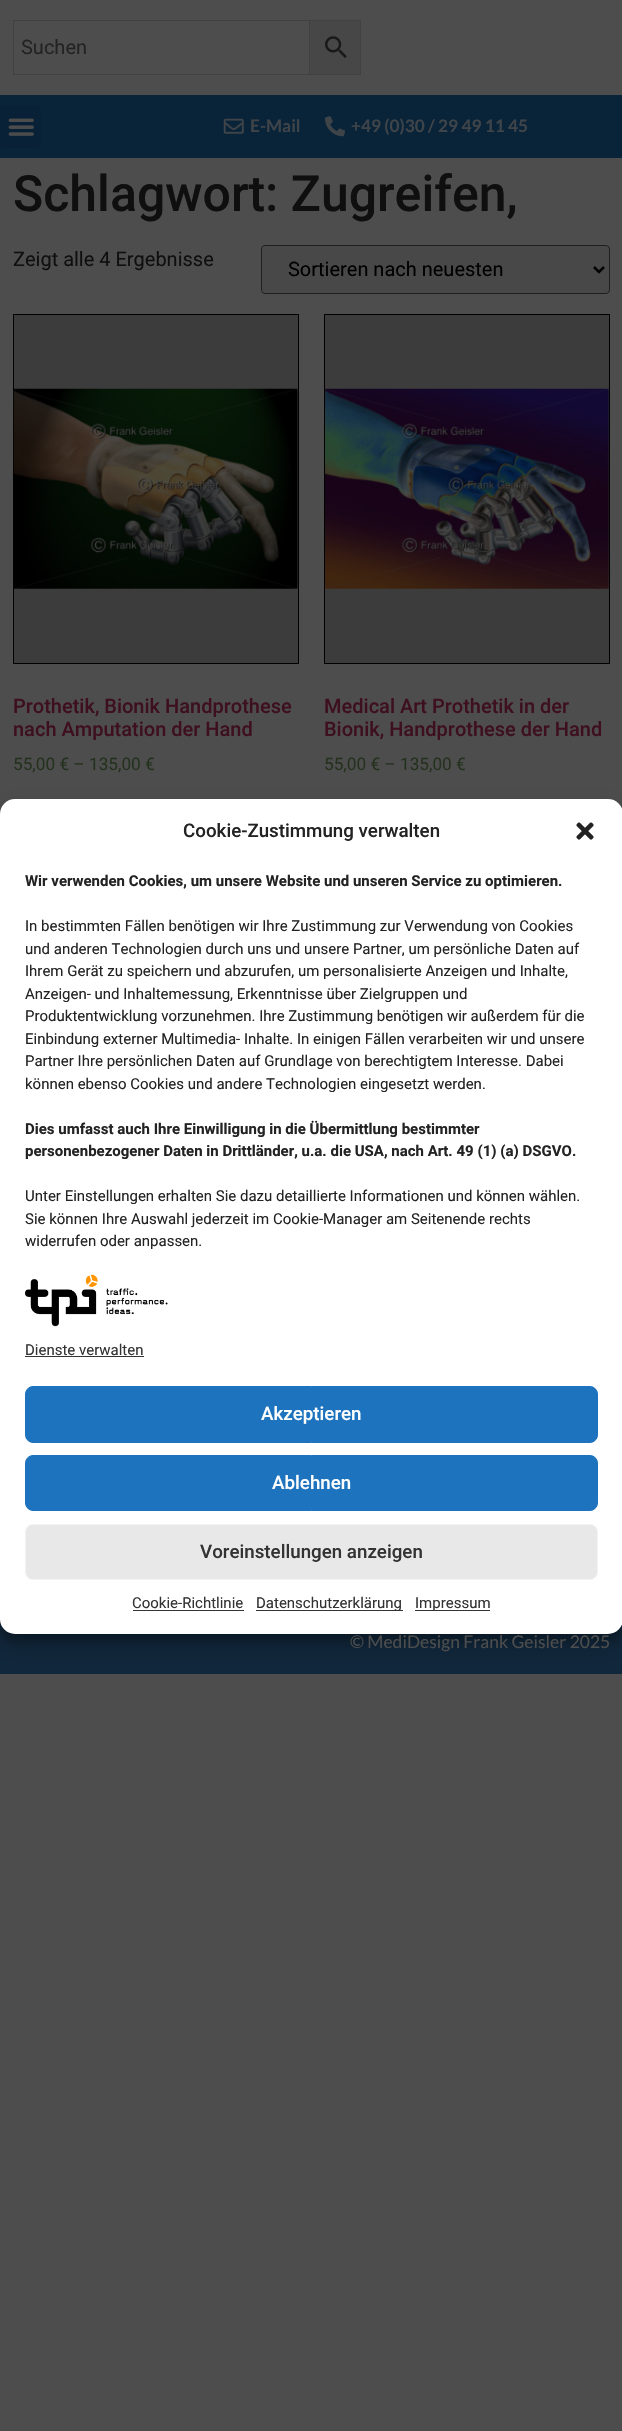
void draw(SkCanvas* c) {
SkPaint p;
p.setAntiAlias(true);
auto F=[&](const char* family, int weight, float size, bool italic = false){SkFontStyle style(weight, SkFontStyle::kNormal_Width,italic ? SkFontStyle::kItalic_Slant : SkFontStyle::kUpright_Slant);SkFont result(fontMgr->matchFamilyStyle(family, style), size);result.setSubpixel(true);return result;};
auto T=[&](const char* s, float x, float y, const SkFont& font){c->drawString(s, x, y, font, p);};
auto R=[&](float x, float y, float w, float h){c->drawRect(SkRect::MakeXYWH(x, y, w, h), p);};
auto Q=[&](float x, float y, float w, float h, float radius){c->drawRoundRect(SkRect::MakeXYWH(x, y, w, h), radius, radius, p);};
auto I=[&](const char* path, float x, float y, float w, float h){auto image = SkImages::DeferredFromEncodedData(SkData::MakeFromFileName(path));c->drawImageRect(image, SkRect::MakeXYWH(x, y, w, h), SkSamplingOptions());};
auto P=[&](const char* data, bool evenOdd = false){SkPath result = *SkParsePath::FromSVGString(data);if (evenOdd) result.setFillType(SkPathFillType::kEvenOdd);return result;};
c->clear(0xff4d4d4d);
p.setColor(0xff474747);
c->drawRect(SkRect::MakeXYWH(309.5,20.5,51,54),p);
p.setStroke(true);
p.setStrokeWidth(1);
p.setColor(0xff414141);
c->drawRect(SkRect::MakeXYWH(309.5,20.5,51,54),p);
c->drawRect(SkRect::MakeXYWH(13.5,20.5,296,54),p);
auto f1 = F("Roboto",400,20);
p.setStroke(false);
p.setColor(0xff232323);
T("Suchen",21,54,f1);
I("1.png",325,36,22,22);
p.setColor(0xff092339);
R(0,95,622,63);
p.setColor(0xff092136);
Q(0,106,41,42,4);
I("2.png",8,118,26,18);
I("3.png",223,118,21,16);
auto f2 = F("Lato",700,17.25);
p.setColor(0xff3f4449);
T("E-Mail",250,132,f2);
I("4.png",325,116,20,21);
T("+49 (0)30 / 29 49 11 45",351,132,f2);
auto f3 = F("Roboto",500,50);
p.setColor(0xff0f0f0f);
T("Schlagwort: Zugreifen,",13,211,f3);
T("Zeigt alle 4 Ergebnisse",13,266,f1);
p.setColor(0xff484848);
c->drawRoundRect(SkRect::MakeXYWH(261.5,245.5,348,48),3.5,3.5,p);
p.setStroke(true);
p.setColor(0xff1f1f1f);
c->drawRoundRect(SkRect::MakeXYWH(261.5,245.5,348,48),3.5,3.5,p);
p.setStrokeWidth(2.5);
p.setColor(0xff000000);
c->drawPath(P("M594 267l5 5l5-5"),p);
p.setStroke(false);
T("Sortieren nach neuesten",288,276,f1);
p.setColor(0xff3c3c3c);
c->drawRect(SkRect::MakeXYWH(13.5,314.5,285,349),p);
p.setStroke(true);
p.setStrokeWidth(1);
p.setColor(0xff000000);
c->drawRect(SkRect::MakeXYWH(13.5,314.5,285,349),p);
I("5.png",13,388,285,201);
auto f4 = F("Roboto",500,20);
p.setStroke(false);
p.setColor(0xff3d0f1f);
T("Prothetik, Bionik Handprothese",13,713,f4);
T("nach Amputation der Hand",13,736,f4);
auto f5 = F("Roboto",400,17.25);
p.setColor(0xff24311e);
T("55,00 € – 135,00 €",13,770,f5);
p.setColor(0xff3c3c3c);
c->drawRect(SkRect::MakeXYWH(324.5,314.5,285,349),p);
p.setStroke(true);
p.setColor(0xff000000);
c->drawRect(SkRect::MakeXYWH(324.5,314.5,285,349),p);
I("6.png",325,388,284,201);
p.setStroke(false);
p.setColor(0xff3d0f1f);
T("Medical Art Prothetik in der",324,713,f4);
T("Bionik, Handprothese der Hand",324,736,f4);
p.setColor(0xff24311e);
T("55,00 € – 135,00 €",324,770,f5);
p.setColor(0xff11273b);
R(0,1619,622,55);
p.setColor(0x3b000000);
p.setMaskFilter(SkMaskFilter::MakeBlur(kNormal_SkBlurStyle, 4));
c->drawRoundRect(SkRect::MakeXYWH(0,806,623,835),15,15,p);
p.setMaskFilter(nullptr);
p.setColor(0x30000000);
p.setMaskFilter(SkMaskFilter::MakeBlur(kNormal_SkBlurStyle, 12.5));
c->drawRoundRect(SkRect::MakeXYWH(0,811,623,835),15,15,p);
p.setMaskFilter(nullptr);
p.setColor(0xffffffff);
Q(0,799,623,835,15);
auto f6 = F("Roboto",500,18.75);
p.setColor(0xff232323);
T("Cookie-Zustimmung verwalten",183,837,f6);
I("7.png",576,822,18,18);
auto f7 = F("Roboto",700,15);
T("Wir verwenden Cookies, um unsere Website und unseren Service zu optimieren.",25,886,f7);
auto f8 = F("Roboto",400,15);
T("In bestimmten Fällen benötigen wir Ihre Zustimmung zur Verwendung von Cookies",25,931,f8);
T("und anderen Technologien durch uns und unsere Partner, um persönliche Daten auf",25,954,f8);
T("Ihrem Gerät zu speichern und abzurufen, um personalisierte Anzeigen und Inhalte,",25,976,f8);
T("Anzeigen- und Inhaltemessung, Erkenntnisse über Zielgruppen und",25,999,f8);
T("Produktentwicklung vorzunehmen. Ihre Zustimmung benötigen wir außerdem für die",25,1021,f8);
T("Einbindung externer Multimedia- Inhalte. In einigen Fällen verarbeiten wir und unsere",25,1044,f8);
T("Partner Ihre persönlichen Daten auf Grundlage von berechtigtem Interesse. Dabei",25,1066,f8);
T("können ebenso Cookies und andere Technologien eingesetzt werden.",25,1089,f8);
T("Dies umfasst auch Ihre Einwilligung in die Übermittlung bestimmter",25,1134,f7);
T("personenbezogener Daten in Drittländer, u.a. die USA, nach Art. 49 (1) (a) DSGVO.",25,1156,f7);
T("Unter Einstellungen erhalten Sie dazu detaillierte Informationen und können wählen.",25,1201,f8);
T("Sie können Ihre Auswahl jederzeit im Cookie-Manager am Seitenende rechts",25,1224,f8);
T("widerrufen oder anpassen.",25,1246,f8);
I("8.png",25,1274,143,53);
p.setColor(0xff333333);
T("Dienste verwalten",25,1355,f8);
R(25,1356,119,1);
p.setColor(0xff1e73be);
c->drawRoundRect(SkRect::MakeXYWH(25.5,1386.5,572,56),7.5,7.5,p);
p.setStroke(true);
c->drawRoundRect(SkRect::MakeXYWH(25.5,1386.5,572,56),7.5,7.5,p);
p.setStroke(false);
p.setColor(0xffffffff);
T("Akzeptieren",261,1420,f6);
p.setColor(0xff1e73be);
c->drawRoundRect(SkRect::MakeXYWH(25.5,1455.5,572,55),7.5,7.5,p);
p.setStroke(true);
c->drawRoundRect(SkRect::MakeXYWH(25.5,1455.5,572,55),7.5,7.5,p);
p.setStroke(false);
p.setColor(0xffffffff);
T("Ablehnen",272,1489,f6);
p.setColor(0xffe8e8e8);
c->drawRoundRect(SkRect::MakeXYWH(25.5,1524.5,572,55),7.5,7.5,p);
p.setStroke(true);
p.setColor(0xfff2f2f2);
c->drawRoundRect(SkRect::MakeXYWH(25.5,1524.5,572,55),7.5,7.5,p);
p.setStroke(false);
p.setColor(0xff333333);
T("Voreinstellungen anzeigen",200,1558,f6);
T("Cookie-Richtlinie",132,1608,f8);
R(133,1610,111,1);
R(256,1610,147,1);
T("Datenschutzerklärung",256,1608,f8);
R(415,1610,75,1);
T("Impressum",415,1608,f8);
auto f9 = F("Lato",400,17.5);
p.setColor(0xff4d4d4d);
T("© MediDesign Frank Geisler 2025",350,1648,f9);
}
